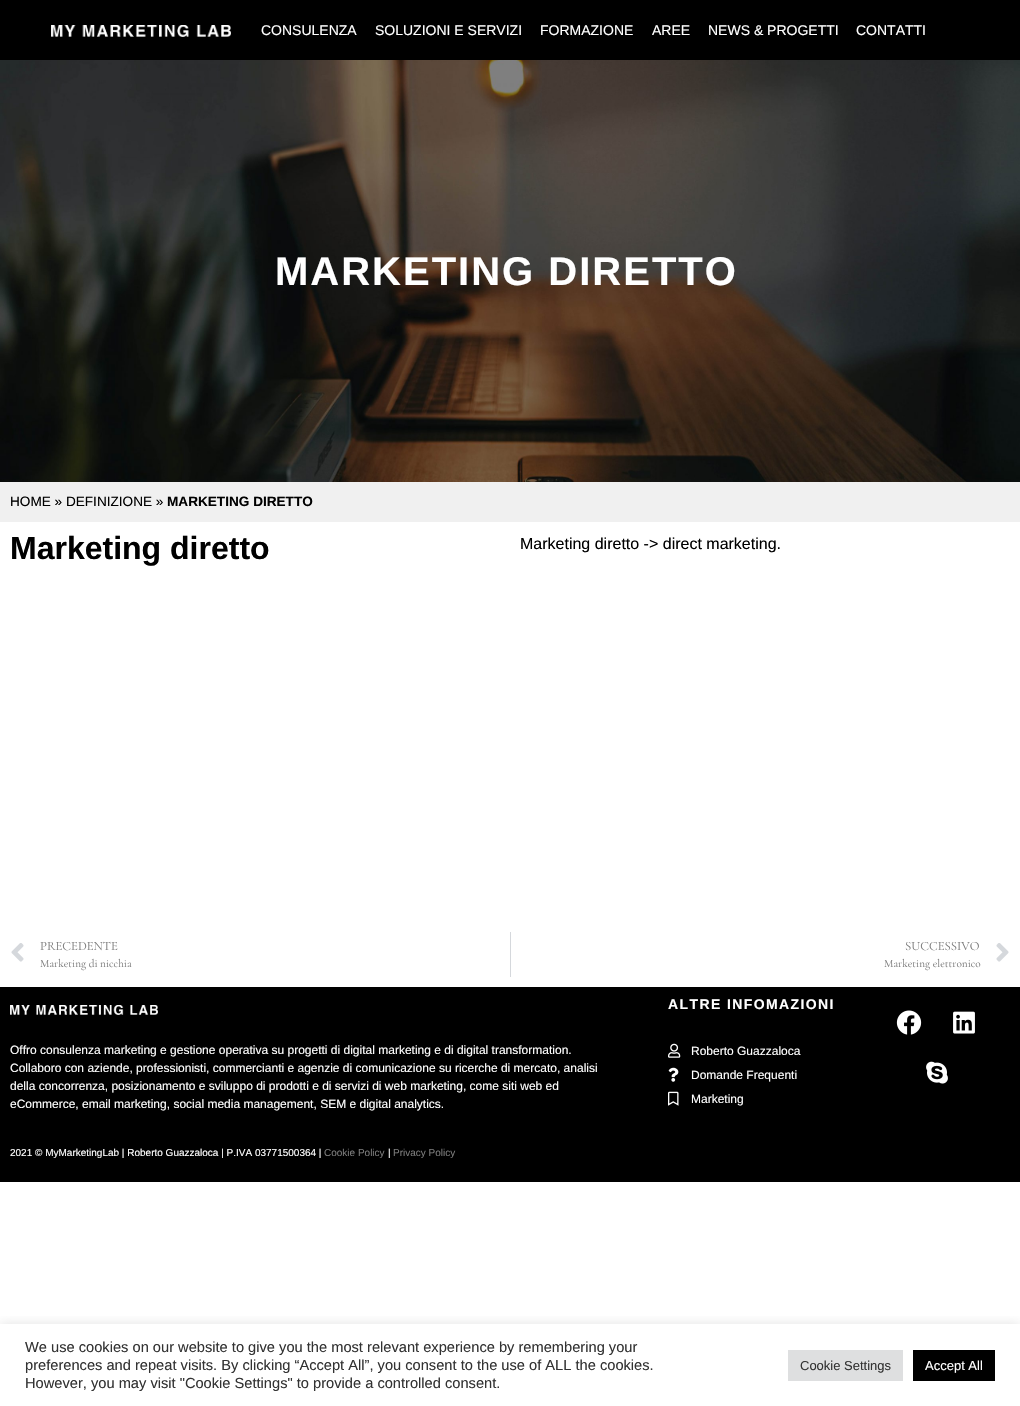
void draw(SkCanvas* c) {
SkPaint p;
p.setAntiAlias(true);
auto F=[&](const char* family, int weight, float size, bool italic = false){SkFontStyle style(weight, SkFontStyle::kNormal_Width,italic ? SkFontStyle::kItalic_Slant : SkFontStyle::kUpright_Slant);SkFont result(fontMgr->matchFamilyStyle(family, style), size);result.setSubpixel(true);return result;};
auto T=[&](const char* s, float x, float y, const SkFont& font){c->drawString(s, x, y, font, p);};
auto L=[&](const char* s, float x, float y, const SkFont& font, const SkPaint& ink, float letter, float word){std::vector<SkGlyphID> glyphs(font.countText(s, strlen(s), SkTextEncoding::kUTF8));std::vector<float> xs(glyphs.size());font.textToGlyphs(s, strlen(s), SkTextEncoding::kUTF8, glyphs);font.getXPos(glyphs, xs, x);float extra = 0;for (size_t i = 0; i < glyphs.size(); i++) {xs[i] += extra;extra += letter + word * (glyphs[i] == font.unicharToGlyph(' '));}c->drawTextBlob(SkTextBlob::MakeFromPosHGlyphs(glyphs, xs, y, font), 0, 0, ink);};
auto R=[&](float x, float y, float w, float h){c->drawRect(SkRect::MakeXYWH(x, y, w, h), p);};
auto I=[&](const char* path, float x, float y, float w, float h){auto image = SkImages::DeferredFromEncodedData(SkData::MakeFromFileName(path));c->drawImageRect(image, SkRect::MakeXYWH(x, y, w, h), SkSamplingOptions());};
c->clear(0xffffffff);
p.setColor(0xff000000);
R(0,0,1020,60);
I("1.png",51,25,180,12);
auto f1 = F("Liberation Sans",400,14);
p.setColor(0xffffffff);
T("CONSULENZA",261,35,f1);
T("SOLUZIONI E SERVIZI",375,35,f1);
T("FORMAZIONE",540,35,f1);
T("AREE",652,35,f1);
T("NEWS & PROGETTI",708,35,f1);
T("CONTATTI",856,35,f1);
I("2.png",0,60,1020,422);
auto f2 = F("Liberation Sans",700,40);
L("MARKETING DIRETTO",275,285,f2,p,2,0);
p.setColor(0xfff0f0f0);
R(0,482,1020,40);
auto f3 = F("Liberation Sans",400,13.6);
p.setColor(0xff000000);
T("HOME » DEFINIZIONE »",10,506,f3);
auto f4 = F("Liberation Sans",700,13.6);
T("MARKETING DIRETTO",167,506,f4);
auto f5 = F("Liberation Sans",700,32);
T("Marketing diretto",10,559,f5);
auto f6 = F("Liberation Sans",400,16);
T("Marketing diretto -> direct marketing.",520,549,f6);
I("3.png",11,943,13,19);
auto f7 = F("Cormorant Garamond",400,12.75);
p.setColor(0xff7b7b7b);
T("PRECEDENTE",40,950,f7);
auto f8 = F("Cormorant Garamond",400,11.25);
T("Marketing di nicchia",40,967,f8);
p.setColor(0xffd5d8dc);
R(510,932,1,45);
p.setColor(0xff7b7b7b);
T("SUCCESSIVO",905,950,f7);
T("Marketing elettronico",884,967,f8);
I("4.png",996,943,13,19);
p.setColor(0xff000000);
R(0,987,1020,195);
I("5.png",10,1005,148,10);
auto f9 = F("Liberation Sans",400,12);
p.setColor(0xffffffff);
T("Offro consulenza marketing e gestione operativa su progetti di digital marketing e di digital transformation.",10,1054,f9);
T("Collaboro con aziende, professionisti, commercianti e agenzie di comunicazione su ricerche di mercato, analisi",10,1072,f9);
T("della concorrenza, posizionamento e sviluppo di prodotti e di servizi di web marketing, come siti web ed",10,1090,f9);
T("eCommerce, email marketing, social media management, SEM e digital analytics.",10,1108,f9);
auto f10 = F("Liberation Sans",400,10);
T("2021 © MyMarketingLab | Roberto Guazzaloca | P.IVA 03771500364 |",10,1156,f10);
p.setColor(0xff7b7b7b);
T("Cookie Policy",324,1156,f10);
p.setColor(0xffffffff);
T("|",388,1156,f10);
p.setColor(0xff7b7b7b);
T("Privacy Policy",393,1156,f10);
auto f11 = F("Liberation Sans",700,14);
p.setColor(0xffffffff);
L("ALTRE INFOMAZIONI",668,1009,f11,p,1.4,0);
I("6.png",668,1043,13,15);
T("Roberto Guazzaloca",691,1055,f9);
I("7.png",668,1067,11,15);
T("Domande Frequenti",691,1079,f9);
I("8.png",668,1091,11,15);
T("Marketing",691,1103,f9);
I("9.png",896,1010,26,25);
I("10.png",953,1011,22,23);
I("11.png",926,1061,22,23);
c->save();
c->clipRect(SkRect::MakeXYWH(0,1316,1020,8));
p.setColor(0x4dacabab);
p.setMaskFilter(SkMaskFilter::MakeBlur(kNormal_SkBlurStyle, 5));
c->drawRect(SkRect::MakeXYWH(0,1323,1020,82),p);
p.setMaskFilter(nullptr);
c->restore();
auto f12 = F("Liberation Sans",400,14.65);
p.setColor(0xff333333);
T("We use cookies on our website to give you the most relevant experience by remembering your",25,1352,f12);
T("preferences and repeat visits. By clicking “Accept All”, you consent to the use of ALL the cookies.",25,1370,f12);
T("However, you may visit \"Cookie Settings\" to provide a controlled consent.",25,1388,f12);
p.setColor(0xffdedfe0);
R(788,1350,115,31);
auto f13 = F("Liberation Sans",400,13);
p.setColor(0xff333333);
T("Cookie Settings",800,1370,f13);
p.setColor(0xff000000);
R(913,1350,82,31);
p.setColor(0xffffffff);
T("Accept All",925,1370,f13);
}
